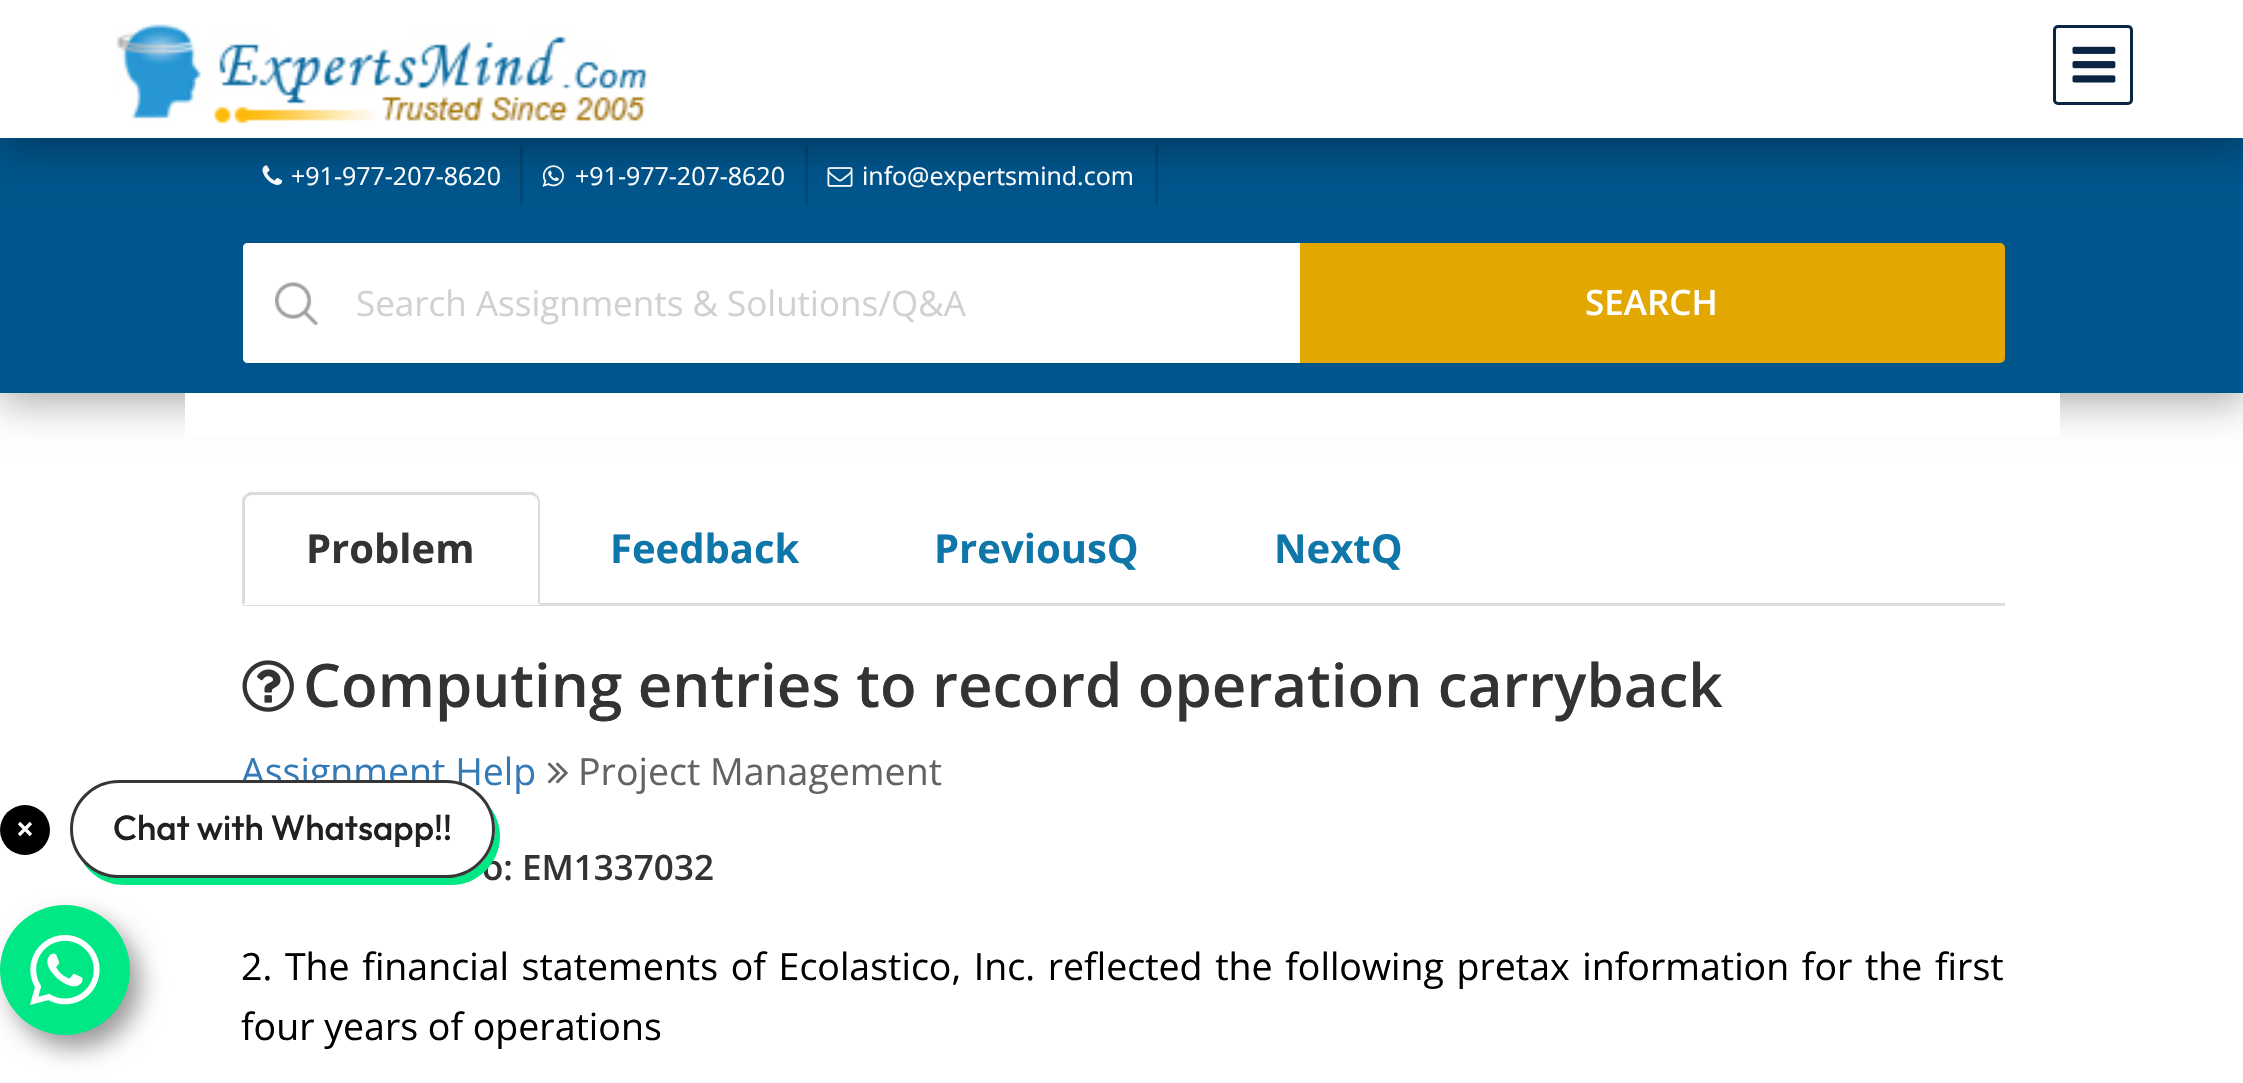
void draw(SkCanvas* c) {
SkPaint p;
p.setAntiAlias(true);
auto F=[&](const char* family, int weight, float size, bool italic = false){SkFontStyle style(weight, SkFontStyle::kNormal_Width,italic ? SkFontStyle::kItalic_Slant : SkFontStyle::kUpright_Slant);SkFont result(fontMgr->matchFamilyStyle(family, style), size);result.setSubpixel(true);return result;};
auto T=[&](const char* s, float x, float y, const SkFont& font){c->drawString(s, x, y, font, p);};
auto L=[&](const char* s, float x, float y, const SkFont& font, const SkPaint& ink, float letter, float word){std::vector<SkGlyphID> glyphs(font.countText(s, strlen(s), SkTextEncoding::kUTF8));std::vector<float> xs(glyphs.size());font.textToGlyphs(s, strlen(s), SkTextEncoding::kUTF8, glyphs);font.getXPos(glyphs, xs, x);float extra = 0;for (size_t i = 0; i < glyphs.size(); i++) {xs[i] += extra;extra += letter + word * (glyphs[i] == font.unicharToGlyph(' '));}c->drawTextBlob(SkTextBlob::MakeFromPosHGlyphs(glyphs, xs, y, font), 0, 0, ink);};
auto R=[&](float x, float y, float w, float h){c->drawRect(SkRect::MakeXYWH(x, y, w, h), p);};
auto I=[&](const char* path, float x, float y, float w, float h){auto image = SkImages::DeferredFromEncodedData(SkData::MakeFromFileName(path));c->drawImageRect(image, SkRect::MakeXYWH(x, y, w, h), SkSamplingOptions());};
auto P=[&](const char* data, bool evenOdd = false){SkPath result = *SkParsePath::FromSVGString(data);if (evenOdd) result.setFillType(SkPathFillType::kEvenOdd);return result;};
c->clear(0xffffffff);
p.setColor(0x52000000);
p.setMaskFilter(SkMaskFilter::MakeBlur(kNormal_SkBlurStyle, 19));
c->drawRect(SkRect::MakeXYWH(0,223,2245,180),p);
p.setMaskFilter(nullptr);
p.setColor(0xff00558c);
R(0,138,2243,255);
p.setColor(0xff004875);
R(520,145,3,60);
I("3.png",262,165,21,20);
R(805,145,3,60);
I("4.png",542,165,22,22);
R(1155,145,3,60);
I("5.png",827,167,26,20);
p.setColor(0x52000000);
p.setMaskFilter(SkMaskFilter::MakeBlur(kNormal_SkBlurStyle, 19));
c->drawRect(SkRect::MakeXYWH(0,10,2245,138),p);
p.setMaskFilter(nullptr);
p.setColor(0xffffffff);
R(0,0,2243,138);
I("1.png",115,24,533,100);
p.setStroke(true);
p.setStrokeWidth(3);
p.setColor(0xff0a2444);
c->drawRoundRect(SkRect::MakeXYWH(2054.5,26.5,77,77),3.5,3.5,p);
I("2.png",2072,46,44,37);
auto f1 = F("Open Sans",400,25);
p.setStroke(false);
p.setColor(0xffffffff);
T("+91-977-207-8620",291,185,f1);
T("+91-977-207-8620",575,185,f1);
T("info@expertsmind.com",862,185,f1);
c->drawPath(P("M248 243h1282v120h-1282c-3 0-5-2-5-5v-110c0-3 2-5 5-5z"),p);
I("6.png",275,282,43,43);
p.setStroke(true);
c->drawPath(P("M248 244.5h1280.5v117h-1280.5c-2 0-3.5-1.5-3.5-3.5v-110c0-2 1.5-3.5 3.5-3.5z"),p);
auto f2 = F("Open Sans",400,35);
p.setStroke(false);
p.setColor(0xffd1d1d1);
T("Search Assignments & Solutions/Q&A",356,316,f2);
p.setColor(0xffe2a700);
c->drawPath(P("M1301.5 244.5h698.5c2 0 3.5 1.5 3.5 3.5v110c0 2-1.5 3.5-3.5 3.5h-698.5z"),p);
p.setStroke(true);
c->drawPath(P("M1301.5 244.5h698.5c2 0 3.5 1.5 3.5 3.5v110c0 2-1.5 3.5-3.5 3.5h-698.5z"),p);
auto f3 = F("Open Sans",600,35);
p.setStroke(false);
p.setColor(0xffffffff);
T("SEARCH",1585,315,f3);
R(185,393,1875,45);
p.setColor(0xffdddddd);
R(243,603,1762,3);
p.setColor(0xffffffff);
c->drawPath(P("M253 493h277c5.5 0 10 4.5 10 10v102h-297v-102c0-5.5 4.5-10 10-10z"),p);
p.setColor(0xffdcdbdb);
c->drawPath(P("M252 495c-2 0-4 1-5 2l-2-2l4-3h284l4 3l-1 2c-2-1-4-2-6-2z"),p);
c->drawPath(P("M540 605v-103c0-2-1-5-3-7l-1 2l2 4v101h-1z"),p);
c->drawPath(P("M242 605v-106l3-4l2 2l-2 4v101h1z"),p);
auto f4 = F("Open Sans",700,40);
p.setColor(0xff333333);
T("Problem",306,563,f4);
p.setColor(0xff0e76a8);
T("Feedback",610,563,f4);
T("PreviousQ",934,563,f4);
T("NextQ",1274,563,f4);
I("7.png",242,660,52,52);
auto f5 = F("Open Sans",600,60);
p.setColor(0xff333333);
T("Computing entries to record operation carryback",303,707,f5);
auto f6 = F("Open Sans",400,37.5);
p.setColor(0xff337ab7);
T("Assignment Help",241,785,f6);
I("8.png",547,762,21,22);
p.setColor(0xff636363);
T("Project Management",578,785,f6);
p.setColor(0xff333333);
T("o: EM1337032",482,880,f3);
p.setColor(0xff000000);
L("2. The financial statements of Ecolastico, Inc. reflected the following pretax information for the first",241,980,f6,p,0,2.9);
T("four years of operations",241,1040,f6);
c->drawCircle(25,830,25,p);
p.setStroke(true);
p.setStrokeWidth(3.3);
p.setColor(0xffffffff);
c->drawPath(P("M19 823l12 12m-12 0l12-12"),p);
p.setStroke(false);
p.setColor(0x66000000);
p.setMaskFilter(SkMaskFilter::MakeBlur(kNormal_SkBlurStyle, 12.5));
c->drawRoundRect(SkRect::MakeXYWH(10,918,130,130),65,65,p);
p.setMaskFilter(nullptr);
p.setColor(0xff00e785);
c->drawPath(P("M81 859c8 15 24 26 43 26h328c26 0 48-22 48-49c0-11-4-21-10-29c3 6 5 14 5 22c0 27-22 49-49 49h-327c-16 0-30-8-38-19z"),p);
p.setColor(0xffffffff);
c->drawRoundRect(SkRect::MakeXYWH(71.5,781.5,422,95),47.5,47.5,p);
p.setStroke(true);
p.setStrokeWidth(3);
p.setColor(0xff363636);
c->drawRoundRect(SkRect::MakeXYWH(71.5,781.5,422,95),47.5,47.5,p);
auto f7 = F("Outfit",500,35);
p.setStroke(false);
p.setColor(0xff202020);
T("Chat with Whatsapp!!",113,840,f7);
p.setColor(0xff00e785);
c->drawCircle(65,970,65,p);
I("9.png",30,935,70,70);
}
